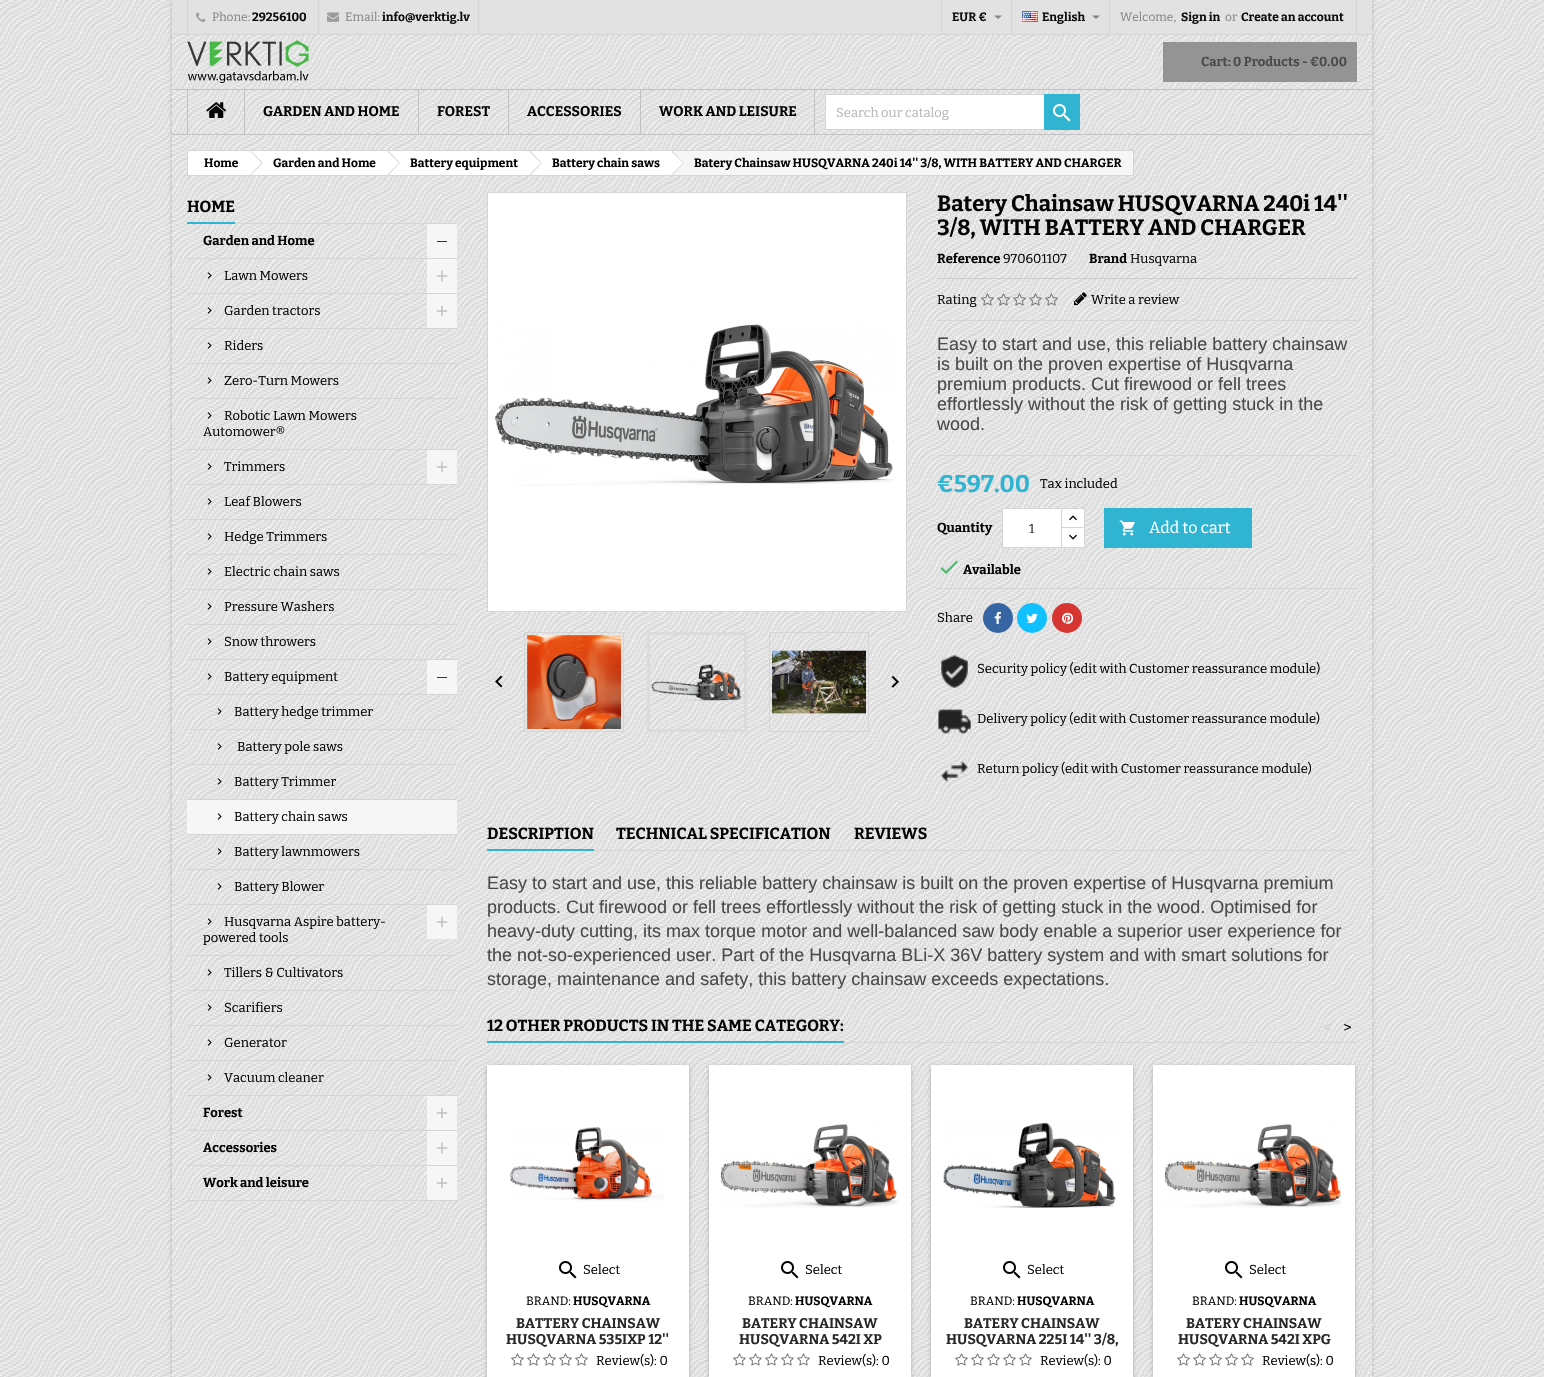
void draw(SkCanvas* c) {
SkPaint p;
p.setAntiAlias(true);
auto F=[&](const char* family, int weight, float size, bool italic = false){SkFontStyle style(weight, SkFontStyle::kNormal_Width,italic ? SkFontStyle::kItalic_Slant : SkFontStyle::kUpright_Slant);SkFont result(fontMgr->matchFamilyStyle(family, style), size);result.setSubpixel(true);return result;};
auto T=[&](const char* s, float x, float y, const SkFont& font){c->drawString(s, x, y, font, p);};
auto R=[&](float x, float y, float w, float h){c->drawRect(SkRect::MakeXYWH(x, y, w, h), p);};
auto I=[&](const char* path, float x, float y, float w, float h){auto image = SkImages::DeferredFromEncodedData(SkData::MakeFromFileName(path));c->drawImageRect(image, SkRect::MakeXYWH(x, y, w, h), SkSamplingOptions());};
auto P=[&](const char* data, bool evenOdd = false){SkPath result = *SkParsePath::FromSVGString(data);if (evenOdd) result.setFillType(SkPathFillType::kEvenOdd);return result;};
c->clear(0xffffffff);
I("1.png",0,0,1544,1377);
p.setColor(0x33000000);
p.setMaskFilter(SkMaskFilter::MakeBlur(kNormal_SkBlurStyle, 2));
c->drawRect(SkRect::MakeXYWH(172,0,1200,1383),p);
p.setMaskFilter(nullptr);
I("2.png",172,135,1200,1242);
p.setColor(0xffe2e2e2);
R(172,0,1200,34);
p.setColor(0xffd6d4d4);
R(172,34,1200,1);
R(187,0,1,34);
I("3.png",196,12,10,10);
auto f1 = F("Bitter",400,12);
p.setColor(0xff878787);
T("Phone:",212,21,f1);
auto f2 = F("Bitter",700,12);
p.setColor(0xff0d0d0d);
T("29256100",252,21,f2);
p.setColor(0xffd6d4d4);
R(478,0,1,34);
R(318,0,1,34);
I("4.png",327,12,12,10);
p.setColor(0xff878787);
T("Email:",345,21,f1);
p.setColor(0xff0d0d0d);
T("info@verktig.lv",382,21,f2);
p.setColor(0xffd6d4d4);
R(941,0,1,34);
p.setColor(0xff0d0d0d);
T("EUR €",952,21,f2);
p.setColor(0xff878787);
c->drawPath(P("M994 15.5h8l-4 3.5z"),p);
p.setColor(0xffd6d4d4);
R(1011,0,1,34);
I("5.png",1022,11,16,11);
p.setColor(0xff0d0d0d);
T("English",1042,21,f2);
p.setColor(0xff878787);
c->drawPath(P("M1092 15.5h8l-4 3.5z"),p);
p.setColor(0xffd6d4d4);
R(1356,0,1,34);
R(1109,0,1,34);
p.setColor(0xff878787);
T("Welcome,",1120,21,f1);
p.setColor(0xff0d0d0d);
T("Sign in",1181,21,f2);
p.setColor(0xff878787);
T("or",1225,21,f1);
p.setColor(0xff0d0d0d);
T("Create an account",1241,21,f2);
I("6.png",172,35,1200,54);
I("7.png",187,40,122,43);
p.setColor(0xff949494);
R(1163,42,194,40);
auto f3 = F("Bitter",700,13);
p.setColor(0xff4a4a4a);
T("Cart: 0 Products - €0.00",1201,66,f3);
I("8.png",172,90,1200,44);
p.setColor(0xffc2c2c2);
R(172,89,1200,1);
R(172,134,1200,1);
R(187,90,1,44);
I("9.png",206,102,21,16);
R(244,90,1,44);
auto f4 = F("Bitter",700,14);
p.setColor(0xff050404);
T("GARDEN AND HOME",263,116,f4);
p.setColor(0xffc2c2c2);
R(418,90,1,44);
p.setColor(0xff050404);
T("FOREST",437,116,f4);
p.setColor(0xffc2c2c2);
R(508,90,1,44);
p.setColor(0xff050404);
T("ACCESSORIES",527,116,f4);
p.setColor(0xffc2c2c2);
R(640,90,1,44);
p.setColor(0xff050404);
T("WORK AND LEISURE",659,116,f4);
p.setColor(0xffc2c2c2);
R(814,90,1,44);
p.setColor(0xffffffff);
R(826,95,218,34);
p.setStroke(true);
p.setStrokeWidth(1);
p.setColor(0xffd6d4d4);
c->drawRect(SkRect::MakeXYWH(825.5,94.5,254,35),p);
auto f5 = F("Bitter",400,13);
p.setStroke(false);
p.setColor(0xffb7b7b7);
T("Search our catalog",836,117,f5);
p.setColor(0xff2fb5d2);
R(1044,94,36,36);
I("10.png",1053,104,18,18);
p.setColor(0xffffffff);
R(188,151,484,24);
p.setStroke(true);
p.setColor(0xffd6d4d4);
c->drawRect(SkRect::MakeXYWH(187.5,150.5,946,25),p);
p.setStroke(false);
p.setColor(0xff050404);
T("Home",204,167,f2);
p.setColor(0xffd6d4d4);
c->drawPath(P("M251 151l11.5 11.5l-1 .5l-11-11.5zm10.5 12l1 .5l-11.5 11.5l-.5-.5z"),p);
p.setColor(0xff050404);
T("Garden and Home",273,167,f2);
p.setColor(0xffffffff);
c->drawPath(P("M389 151.5l10 10c.5 1 .5 2 0 3l-10 10c-1 .5-2 .5-3 0l-10-10c-.5-1-.5-2 0-3l10-10c1-.5 2-.5 3 0z"),p);
p.setColor(0xffd6d4d4);
c->drawPath(P("M388.5 151l11 11.5l-.5 .5l-11.5-11.5zm10.5 12l.5 .5l-11 11.5l-1-.5z"),p);
p.setColor(0xff050404);
T("Battery equipment",410,167,f2);
p.setColor(0xffd6d4d4);
c->drawPath(P("M530.5 151l11 11.5l-.5 .5l-11.5-11.5zm10.5 12l.5 .5l-11 11.5l-1-.5z"),p);
p.setColor(0xff050404);
T("Battery chain saws",552,167,f2);
p.setColor(0xfff6f6f6);
R(672,151,461,24);
p.setColor(0xffffffff);
c->drawPath(P("M673 151.5l10 10c.5 1 .5 2 0 3l-10 10c-.5 .5-2 .5-3 0l-9.5-10c-1-1-1-2 0-3l9.5-10c1-.5 2.5-.5 3 0z"),p);
p.setColor(0xffd6d4d4);
c->drawPath(P("M672.5 151l11 11.5l-.5 .5l-11.5-11.5zm10.5 12l.5 .5l-11 11.5l-1-.5z"),p);
p.setColor(0xff050404);
T("Batery Chainsaw HUSQVARNA 240i 14'' 3/8, WITH BATTERY AND CHARGER",694,167,f2);
p.setColor(0xffd6d4d4);
R(235,223,222,1);
p.setColor(0xff2fb5d2);
R(187,222,48,2);
auto f6 = F("Bitter",700,16);
p.setColor(0xff050404);
T("HOME",187,212,f6);
p.setColor(0xffd6d4d4);
R(187,258,270,1);
p.setColor(0xff050404);
T("Garden and Home",203,245,f3);
p.setColor(0xfff6f6f6);
R(427,224,30,34);
p.setColor(0xff333333);
R(437,241,10,1);
p.setColor(0xffd6d4d4);
R(187,293,270,1);
I("11.png",207,272,5,7);
p.setColor(0xff050404);
T("Lawn Mowers",224,280,f5);
p.setColor(0xfff6f6f6);
R(427,259,30,34);
I("12.png",436,270,12,12);
p.setColor(0xffd6d4d4);
R(187,328,270,1);
I("13.png",207,307,5,7);
p.setColor(0xff050404);
T("Garden tractors",224,315,f5);
p.setColor(0xfff6f6f6);
R(427,294,30,34);
I("12.png",436,305,12,12);
p.setColor(0xffd6d4d4);
R(187,363,270,1);
I("14.png",207,342,5,7);
p.setColor(0xff050404);
T("Riders",224,350,f5);
p.setColor(0xffd6d4d4);
R(187,398,270,1);
I("15.png",207,377,5,7);
p.setColor(0xff050404);
T("Zero-Turn Mowers",224,385,f5);
p.setColor(0xffd6d4d4);
R(187,449,270,1);
I("16.png",207,412,5,7);
p.setColor(0xff050404);
T("Robotic Lawn Mowers",224,420,f5);
T("Automower®",203,436,f5);
p.setColor(0xffd6d4d4);
R(187,484,270,1);
I("17.png",207,463,5,7);
p.setColor(0xff050404);
T("Trimmers",224,471,f5);
p.setColor(0xfff6f6f6);
R(427,450,30,34);
I("12.png",436,461,12,12);
p.setColor(0xffd6d4d4);
R(187,519,270,1);
I("18.png",207,498,5,7);
p.setColor(0xff050404);
T("Leaf Blowers",224,506,f5);
p.setColor(0xffd6d4d4);
R(187,554,270,1);
I("19.png",207,533,5,7);
p.setColor(0xff050404);
T("Hedge Trimmers",224,541,f5);
p.setColor(0xffd6d4d4);
R(187,589,270,1);
I("20.png",207,568,5,7);
p.setColor(0xff050404);
T("Electric chain saws",224,576,f5);
p.setColor(0xffd6d4d4);
R(187,624,270,1);
I("21.png",207,603,5,7);
p.setColor(0xff050404);
T("Pressure Washers",224,611,f5);
p.setColor(0xffd6d4d4);
R(187,659,270,1);
I("22.png",207,638,5,7);
p.setColor(0xff050404);
T("Snow throwers",224,646,f5);
p.setColor(0xffd6d4d4);
R(187,694,270,1);
I("23.png",207,673,5,7);
p.setColor(0xff050404);
T("Battery equipment",224,681,f5);
p.setColor(0xfff6f6f6);
R(427,660,30,34);
p.setColor(0xff333333);
R(437,677,10,1);
p.setColor(0xffd6d4d4);
R(187,729,270,1);
I("24.png",217,708,5,7);
p.setColor(0xff050404);
T("Battery hedge trimmer",234,716,f5);
p.setColor(0xffd6d4d4);
R(187,764,270,1);
I("25.png",217,743,5,7);
p.setColor(0xff050404);
T("Battery pole saws",237,751,f5);
p.setColor(0xffd6d4d4);
R(187,799,270,1);
I("26.png",217,778,5,7);
p.setColor(0xff050404);
T("Battery Trimmer",234,786,f5);
p.setColor(0xfff6f6f6);
R(187,800,270,34);
p.setColor(0xffd6d4d4);
R(187,834,270,1);
I("27.png",217,813,5,7);
p.setColor(0xff050404);
T("Battery chain saws",234,821,f5);
p.setColor(0xffd6d4d4);
R(187,869,270,1);
I("28.png",217,848,5,7);
p.setColor(0xff050404);
T("Battery lawnmowers",234,856,f5);
p.setColor(0xffd6d4d4);
R(187,904,270,1);
I("29.png",217,883,5,7);
p.setColor(0xff050404);
T("Battery Blower",234,891,f5);
p.setColor(0xffd6d4d4);
R(187,955,270,1);
I("30.png",207,918,5,7);
p.setColor(0xff050404);
T("Husqvarna Aspire battery-",224,926,f5);
T("powered tools",203,942,f5);
p.setColor(0xfff6f6f6);
R(427,905,30,34);
I("12.png",436,916,12,12);
p.setColor(0xffd6d4d4);
R(187,990,270,1);
I("31.png",207,969,5,7);
p.setColor(0xff050404);
T("Tillers & Cultivators",224,977,f5);
p.setColor(0xffd6d4d4);
R(187,1025,270,1);
I("32.png",207,1004,5,7);
p.setColor(0xff050404);
T("Scarifiers",224,1012,f5);
p.setColor(0xffd6d4d4);
R(187,1060,270,1);
I("33.png",207,1039,5,7);
p.setColor(0xff050404);
T("Generator",224,1047,f5);
p.setColor(0xffd6d4d4);
R(187,1095,270,1);
I("34.png",207,1074,5,7);
p.setColor(0xff050404);
T("Vacuum cleaner",224,1082,f5);
p.setColor(0xffd6d4d4);
R(187,1130,270,1);
p.setColor(0xff050404);
T("Forest",203,1117,f3);
p.setColor(0xfff6f6f6);
R(427,1096,30,34);
I("12.png",436,1107,12,12);
p.setColor(0xffd6d4d4);
R(187,1165,270,1);
p.setColor(0xff050404);
T("Accessories",203,1152,f3);
p.setColor(0xfff6f6f6);
R(427,1131,30,34);
I("12.png",436,1142,12,12);
p.setColor(0xffd6d4d4);
R(187,1200,270,1);
p.setColor(0xff050404);
T("Work and leisure",203,1187,f3);
p.setColor(0xfff6f6f6);
R(427,1166,30,34);
I("12.png",436,1177,12,12);
p.setStroke(true);
p.setColor(0xffd6d4d4);
c->drawRect(SkRect::MakeXYWH(487.5,192.5,419,419),p);
p.setStroke(false);
p.setColor(0xffffffff);
R(488,193,418,418);
I("35.png",494,324,401,162);
p.setStroke(true);
p.setColor(0xffd6d4d4);
c->drawRect(SkRect::MakeXYWH(524.5,632.5,99,99),p);
p.setStrokeWidth(3);
p.setColor(0xffdbdbdb);
c->drawRect(SkRect::MakeXYWH(648.5,633.5,97,97),p);
p.setStrokeWidth(1);
p.setColor(0xffd6d4d4);
c->drawRect(SkRect::MakeXYWH(769.5,632.5,99,99),p);
I("36.png",527,635,94,94);
I("37.png",651,664,90,37);
I("38.png",772,650,94,64);
I("39.png",495,675,8,13);
I("40.png",891,675,8,13);
auto f7 = F("Bitter",700,22);
p.setStroke(false);
p.setColor(0xff050404);
T("Batery Chainsaw HUSQVARNA 240i 14''",937,211,f7);
T("3/8, WITH BATTERY AND CHARGER",937,235,f7);
T("Reference",937,263,f3);
T("970601107",1003,263,f5);
T("Brand",1089,263,f3);
T("Husqvarna",1130,263,f5);
p.setColor(0xffcccccc);
R(937,278,420,1);
p.setColor(0xff050404);
T("Rating",937,304,f5);
I("41.png",981,293,13,13);
I("42.png",997,293,13,13);
I("43.png",1013,293,13,13);
I("44.png",1029,293,13,13);
I("45.png",1045,293,13,13);
I("46.png",1074,292,13,14);
T("Write a review",1091,304,f5);
p.setColor(0xffd6d4d4);
R(937,320,420,1);
auto f8 = F("Liberation Sans",400,18);
p.setColor(0xff4a4a4a);
T("Easy to start and use, this reliable battery chainsaw",937,350,f8);
T("is built on the proven expertise of Husqvarna",937,370,f8);
T("premium products. Cut firewood or fell trees",937,390,f8);
T("effortlessly without the risk of getting stuck in the",937,410,f8);
T("wood.",937,430,f8);
p.setColor(0xffd6d4d4);
R(937,455,420,1);
auto f9 = F("Bitter",700,24);
p.setColor(0xff2fb5d2);
T("€597.00",937,492,f9);
p.setColor(0xff050404);
T("Tax included",1040,488,f5);
T("Quantity",937,532,f3);
p.setColor(0xffffffff);
R(1062,509,22,18);
p.setStroke(true);
p.setColor(0xffd6d4d4);
c->drawRect(SkRect::MakeXYWH(1061.5,508.5,23,20),p);
p.setStroke(false);
p.setColor(0xffffffff);
c->drawRect(SkRect::MakeXYWH(1061.5,527.5,23,20),p);
p.setStroke(true);
p.setColor(0xffd6d4d4);
c->drawRect(SkRect::MakeXYWH(1061.5,527.5,23,20),p);
p.setStroke(false);
p.setColor(0xffffffff);
c->drawRect(SkRect::MakeXYWH(1002.5,508.5,59,39),p);
p.setStroke(true);
p.setColor(0xffd6d4d4);
c->drawRect(SkRect::MakeXYWH(1002.5,508.5,59,39),p);
p.setStroke(false);
p.setColor(0xff282828);
T("1",1029,533,f5);
I("47.png",1069,515,8,6);
I("48.png",1069,534,8,6);
p.setColor(0xff2fb5d2);
R(1104,508,148,40);
I("49.png",1119,520,16,16);
auto f10 = F("Bitter",400,16);
p.setColor(0xffffffff);
T("Add to cart",1149,533,f10);
p.setColor(0xff4cbb6c);
c->drawPath(P("M946 571l10.5-10.5l1.5 1.5l-12 12l-5.5-5.5l1.5-1.5z"),p);
p.setColor(0xff050404);
T("Available",963,574,f3);
p.setColor(0xffd6d4d4);
R(937,588,420,1);
p.setColor(0xff050404);
T("Share",937,622,f5);
p.setColor(0xff3765a3);
c->drawCircle(998,618,15,p);
I("50.png",994,611,7,13);
p.setColor(0xff11c1ff);
c->drawCircle(1032,618,15,p);
I("51.png",1026,613,12,10);
p.setColor(0xffd73532);
c->drawCircle(1067,618,15,p);
I("52.png",1062,612,12,12);
I("53.png",941,655,27,33);
p.setColor(0xff050404);
T("Security policy (edit with Customer reassurance module)",977,673,f5);
I("54.png",938,709,33,25);
T("Delivery policy (edit with Customer reassurance module)",977,723,f5);
I("55.png",941,761,27,22);
T("Return policy (edit with Customer reassurance module)",977,773,f5);
p.setColor(0xffd6d4d4);
R(594,850,763,1);
p.setColor(0xff2fb5d2);
R(487,849,107,2);
p.setColor(0xff050404);
T("DESCRIPTION",487,839,f6);
T("TECHNICAL SPECIFICATION",616,839,f6);
T("REVIEWS",854,839,f6);
p.setColor(0xff4a4a4a);
T("Easy to start and use, this reliable battery chainsaw is built on the proven expertise of Husqvarna premium",487,889,f8);
T("products. Cut firewood or fell trees effortlessly without the risk of getting stuck in the wood. Optimised for",487,913,f8);
T("heavy-duty cutting, its max torque motor and well-balanced saw body enable a superior user experience for",487,937,f8);
T("the not-so-experienced user. Part of the Husqvarna BLi-X 36V battery system and with smart solutions for",487,961,f8);
T("storage, maintenance and safety, this battery chainsaw exceeds expectations.",487,985,f8);
p.setColor(0xffd6d4d4);
R(844,1042,513,1);
p.setColor(0xff2fb5d2);
R(487,1041,357,2);
p.setColor(0xff050404);
T("12 OTHER PRODUCTS IN THE SAME CATEGORY:",487,1031,f6);
p.setColor(0xffcccccc);
T("<",1323,1033,f10);
p.setColor(0xff050404);
T(">",1343,1033,f10);
p.setColor(0x3d000000);
p.setMaskFilter(SkMaskFilter::MakeBlur(kNormal_SkBlurStyle, 2));
c->drawRect(SkRect::MakeXYWH(487,1066,202,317),p);
p.setMaskFilter(nullptr);
p.setColor(0xffffffff);
R(487,1065,202,312);
I("56.png",509,1127,155,74);
I("57.png",559,1261,18,18);
p.setColor(0xff050404);
T("Select",583,1274,f5);
T("BRAND:",526,1305,f1);
T("HUSQVARNA",573,1305,f2);
p.setColor(0xff282828);
T("BATTERY CHAINSAW",516,1328,f4);
T("HUSQVARNA 535IXP 12''",506,1344,f4);
I("58.png",511,1353,13,13);
I("58.png",527,1353,13,13);
I("58.png",543,1353,13,13);
I("58.png",559,1353,13,13);
I("58.png",575,1353,13,13);
p.setColor(0xff050404);
T("Review(s): 0",596,1365,f5);
p.setColor(0x3d000000);
p.setMaskFilter(SkMaskFilter::MakeBlur(kNormal_SkBlurStyle, 2));
c->drawRect(SkRect::MakeXYWH(709,1066,202,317),p);
p.setMaskFilter(nullptr);
p.setColor(0xffffffff);
R(709,1065,202,312);
I("59.png",720,1124,178,84);
I("57.png",781,1261,18,18);
p.setColor(0xff050404);
T("Select",805,1274,f5);
T("BRAND:",748,1305,f1);
T("HUSQVARNA",795,1305,f2);
p.setColor(0xff282828);
T("BATERY CHAINSAW",742,1328,f4);
T("HUSQVARNA 542I XP",739,1344,f4);
I("58.png",733,1353,13,13);
I("58.png",749,1353,13,13);
I("58.png",765,1353,13,13);
I("58.png",781,1353,13,13);
I("58.png",797,1353,13,13);
p.setColor(0xff050404);
T("Review(s): 0",818,1365,f5);
p.setColor(0x3d000000);
p.setMaskFilter(SkMaskFilter::MakeBlur(kNormal_SkBlurStyle, 2));
c->drawRect(SkRect::MakeXYWH(931,1066,202,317),p);
p.setMaskFilter(nullptr);
p.setColor(0xffffffff);
R(931,1065,202,312);
I("60.png",942,1122,174,86);
I("57.png",1003,1261,18,18);
p.setColor(0xff050404);
T("Select",1027,1274,f5);
T("BRAND:",970,1305,f1);
T("HUSQVARNA",1017,1305,f2);
p.setColor(0xff282828);
T("BATERY CHAINSAW",964,1328,f4);
T("HUSQVARNA 225I 14'' 3/8,",946,1344,f4);
I("58.png",955,1353,13,13);
I("58.png",971,1353,13,13);
I("58.png",987,1353,13,13);
I("58.png",1003,1353,13,13);
I("58.png",1019,1353,13,13);
p.setColor(0xff050404);
T("Review(s): 0",1040,1365,f5);
p.setColor(0x3d000000);
p.setMaskFilter(SkMaskFilter::MakeBlur(kNormal_SkBlurStyle, 2));
c->drawRect(SkRect::MakeXYWH(1153,1066,202,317),p);
p.setMaskFilter(nullptr);
p.setColor(0xffffffff);
R(1153,1065,202,312);
I("61.png",1164,1124,178,84);
I("57.png",1225,1261,18,18);
p.setColor(0xff050404);
T("Select",1249,1274,f5);
T("BRAND:",1192,1305,f1);
T("HUSQVARNA",1239,1305,f2);
p.setColor(0xff282828);
T("BATERY CHAINSAW",1186,1328,f4);
T("HUSQVARNA 542I XPG",1178,1344,f4);
I("58.png",1177,1353,13,13);
I("58.png",1193,1353,13,13);
I("58.png",1209,1353,13,13);
I("58.png",1225,1353,13,13);
I("58.png",1241,1353,13,13);
p.setColor(0xff050404);
T("Review(s): 0",1262,1365,f5);
}
